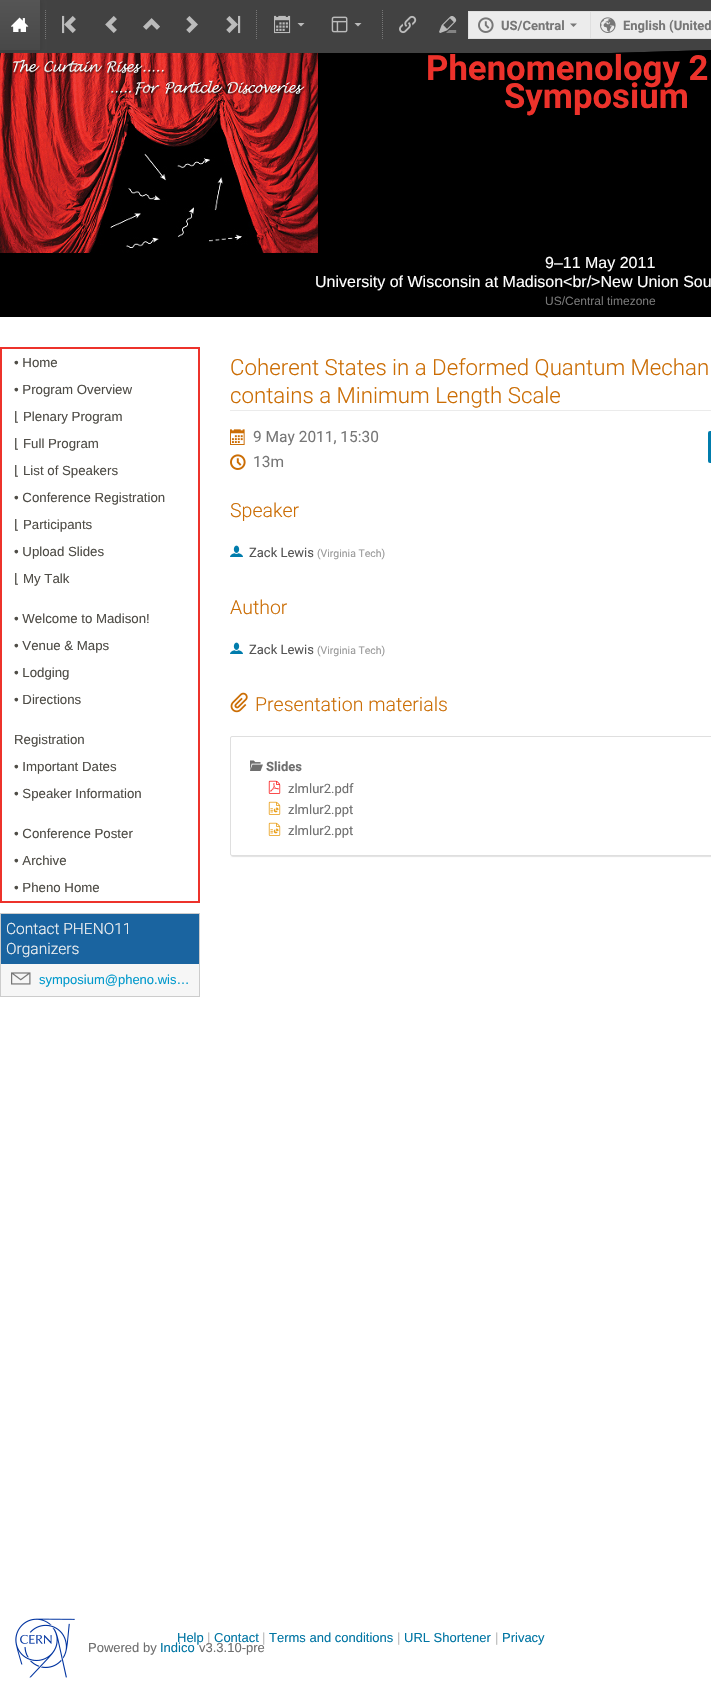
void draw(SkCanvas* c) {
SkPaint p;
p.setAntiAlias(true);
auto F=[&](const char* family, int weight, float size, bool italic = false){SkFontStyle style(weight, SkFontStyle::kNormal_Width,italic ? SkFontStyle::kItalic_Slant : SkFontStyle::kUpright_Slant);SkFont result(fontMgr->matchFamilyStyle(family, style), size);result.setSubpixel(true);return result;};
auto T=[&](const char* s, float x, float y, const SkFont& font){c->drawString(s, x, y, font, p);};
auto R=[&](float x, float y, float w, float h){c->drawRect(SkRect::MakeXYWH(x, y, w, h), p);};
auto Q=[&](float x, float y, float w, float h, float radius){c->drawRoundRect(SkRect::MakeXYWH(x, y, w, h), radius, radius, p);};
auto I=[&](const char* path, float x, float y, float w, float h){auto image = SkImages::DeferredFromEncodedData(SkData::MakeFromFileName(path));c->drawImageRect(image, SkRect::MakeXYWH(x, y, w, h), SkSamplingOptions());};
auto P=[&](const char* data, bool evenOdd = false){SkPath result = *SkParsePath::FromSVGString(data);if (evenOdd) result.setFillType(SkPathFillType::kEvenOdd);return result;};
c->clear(0xffffffff);
p.setColor(0xff424242);
R(40,0,671,50);
p.setColor(0xff000000);
R(318,50,393,115);
p.setColor(0xff424242);
c->drawPath(P("M0 50h711l-100 3h-611z"),p);
p.setColor(0xff000000);
R(0,165,711,152);
I("13.png",0,53,318,200);
p.setColor(0x1a141414);
p.setMaskFilter(SkMaskFilter::MakeBlur(kNormal_SkBlurStyle, 2));
c->drawRect(SkRect::MakeXYWH(1,1,40,50),p);
p.setMaskFilter(nullptr);
{
const SkColor colors[] = {0xff555555,0xff484848};
const float stops[] = {0,1};
const SkPoint ends[] = {{20,0}, {20,50}};
p.setShader(SkGradientShader::MakeLinear(ends, colors, stops, 2, SkTileMode::kClamp));
p.setAlpha(255);
}
R(0,0,40,50);
I("1.png",11,17,18,15);
p.setStroke(true);
p.setStrokeWidth(1);
p.setShader(nullptr);
p.setColor(0xff777777);
p.setPathEffect(SkDashPathEffect::Make({{1,1}}, 0));
c->drawPath(P("M45.5 10v30"),p);
p.setPathEffect(nullptr);
I("2.png",62,15,14,19);
I("3.png",105,16,12,17);
I("4.png",143,18,17,12);
I("5.png",186,16,12,17);
I("6.png",226,15,15,19);
p.setPathEffect(SkDashPathEffect::Make({{1,1}}, 0));
c->drawPath(P("M256.5 10v30"),p);
p.setPathEffect(nullptr);
I("7.png",274,15,17,19);
p.setStroke(false);
p.setColor(0xffbbbbbb);
c->drawPath(P("M297.5 23l3.5 3.5l3.5-3.5z"),p);
I("8.png",331,16,17,17);
c->drawPath(P("M354.5 23l3.5 3.5l3.5-3.5z"),p);
p.setStroke(true);
p.setColor(0xff777777);
p.setPathEffect(SkDashPathEffect::Make({{1,1}}, 0));
c->drawPath(P("M382.5 10v30"),p);
p.setPathEffect(nullptr);
I("9.png",399,15,18,19);
I("10.png",439,16,18,17);
p.setStroke(false);
p.setColor(0xffececec);
R(469,12,121,26);
p.setColor(0xffdfdfdf);
R(468,11,122,1);
R(468,38,122,1);
R(468,11,1,28);
I("11.png",478,17,16,16);
auto f1 = F("Roboto",700,13);
p.setColor(0xff777777);
T("US/Central",501,30,f1);
c->drawPath(P("M570 23.5l3.5 3.5l3.5-3.5z"),p);
p.setColor(0xffececec);
c->drawRect(SkRect::MakeXYWH(590.5,11.5,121,27),p);
p.setStroke(true);
p.setColor(0xffdfdfdf);
c->drawRect(SkRect::MakeXYWH(590.5,11.5,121,27),p);
I("12.png",600,17,16,16);
p.setStroke(false);
p.setColor(0xff777777);
T("English (United",623,30,f1);
p.setColor(0xff000000);
c->drawPath(P("M711 50v115h-100v-112z"),p);
auto f2 = F("Roboto",700,34.75);
p.setColor(0xffed322b);
T("Phenomenology 2",426,80,f2);
T("Symposium",504,108,f2);
auto f3 = F("Liberation Sans",400,16);
p.setColor(0xffffffff);
T("9–11 May 2011",545,268,f3);
T("University of Wisconsin at Madison<br/>New Union Sou",315,287,f3);
auto f4 = F("Liberation Sans",400,12);
p.setColor(0xff777777);
T("US/Central timezone",545,305,f4);
p.setStroke(true);
p.setStrokeWidth(2);
p.setColor(0xffed322b);
c->drawRect(SkRect::MakeXYWH(1,348,198,554),p);
auto f5 = F("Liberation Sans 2",400,13.25);
p.setStroke(false);
p.setColor(0xff4e4c46);
T("• Home",14,367,f5);
T("• Program Overview",14,394,f5);
auto f6 = F("DejaVu Sans",400,13.25);
T("⌊",14,421,f6);
T("Plenary Program",23,421,f5);
T("⌊",14,448,f6);
T("Full Program",23,448,f5);
T("⌊",14,475,f6);
T("List of Speakers",23,475,f5);
T("• Conference Registration",14,502,f5);
T("⌊",14,529,f6);
T("Participants",23,529,f5);
T("• Upload Slides",14,556,f5);
T("⌊",14,583,f6);
T("My Talk",23,583,f5);
T("• Welcome to Madison!",14,623,f5);
T("• Venue & Maps",14,650,f5);
T("• Lodging",14,677,f5);
T("• Directions",14,704,f5);
T("Registration",14,744,f5);
T("• Important Dates",14,771,f5);
T("• Speaker Information",14,798,f5);
T("• Conference Poster",14,838,f5);
T("• Archive",14,865,f5);
T("• Pheno Home",14,892,f5);
p.setColor(0xfff6f6f6);
R(1,964,198,32);
p.setStroke(true);
p.setStrokeWidth(1);
p.setColor(0xffcccccc);
c->drawRect(SkRect::MakeXYWH(.5,913.5,199,83),p);
p.setStroke(false);
p.setColor(0xff1a64a0);
R(1,914,198,50);
auto f7 = F("Roboto",300,15.5);
p.setColor(0xfff3f3f3);
T("Contact PHENO11",6,934,f7);
T("Organizers",6,954,f7);
I("14.png",11,972,20,13);
auto f8 = F("Liberation Sans",400,13);
p.setColor(0xff0099cc);
T("symposium@pheno.wis…",39,984,f8);
p.setColor(0xffebebeb);
R(230,410,481,1);
auto f9 = F("Roboto",300,22.25);
p.setColor(0xffcb6d04);
T("Coherent States in a Deformed Quantum Mechan",230,375,f9);
T("contains a Minimum Length Scale",230,403,f9);
I("15.png",230,429,15,16);
auto f10 = F("Roboto",400,15.5);
p.setColor(0xff777777);
T("9 May 2011, 15:30",253,442,f10);
I("16.png",230,454,16,16);
T("13m",253,467,f10);
p.setColor(0xff007cac);
Q(708,431,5,32,2);
auto f11 = F("Roboto",300,19.5);
p.setColor(0xffcb6d04);
T("Speaker",230,517,f11);
I("17.png",230,545,13,12);
auto f12 = F("Roboto",400,13);
p.setColor(0xff555555);
T("Zack Lewis",249,557,f12);
auto f13 = F("Roboto",400,10.5);
p.setColor(0xff999999);
T("(Virginia Tech)",317,557,f13);
p.setColor(0xffcb6d04);
T("Author",230,614,f11);
I("17.png",230,642,13,12);
p.setColor(0xff555555);
T("Zack Lewis",249,654,f12);
p.setColor(0xff999999);
T("(Virginia Tech)",317,654,f13);
I("18.png",230,692,18,21);
p.setColor(0xffcb6d04);
T("Presentation materials",255,711,f11);
p.setColor(0xffe1e1e1);
p.setMaskFilter(SkMaskFilter::MakeBlur(kNormal_SkBlurStyle, .5));
c->drawRoundRect(SkRect::MakeXYWH(231,737,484,120),2,2,p);
p.setMaskFilter(nullptr);
p.setColor(0xffffffff);
c->drawRoundRect(SkRect::MakeXYWH(230.5,736.5,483,119),1.5,1.5,p);
p.setStroke(true);
p.setColor(0xffdfdfdf);
c->drawRoundRect(SkRect::MakeXYWH(230.5,736.5,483,119),1.5,1.5,p);
I("19.png",250,760,13,11);
p.setStroke(false);
p.setColor(0xff6e6e6e);
T("Slides",266,771,f1);
I("20.png",268,780,13,14);
T("zlmlur2.pdf",288,793,f12);
I("21.png",268,801,13,14);
T("zlmlur2.ppt",288,814,f12);
I("21.png",268,822,13,14);
T("zlmlur2.ppt",288,835,f12);
p.setColor(0xff0075a3);
T("Help",177,1642,f8);
p.setColor(0xffbbbbbb);
T("|",207,1642,f8);
p.setColor(0xff0075a3);
T("Contact",214,1642,f8);
p.setColor(0xffbbbbbb);
T("|",262,1642,f8);
p.setColor(0xff0075a3);
T("Terms and conditions",269,1642,f8);
p.setColor(0xffbbbbbb);
T("|",397,1642,f8);
p.setColor(0xff0075a3);
T("URL Shortener",404,1642,f8);
p.setColor(0xffbbbbbb);
T("|",495,1642,f8);
p.setColor(0xff0075a3);
T("Privacy",502,1642,f8);
I("22.png",15,1618,60,60);
p.setColor(0xff6e6e6e);
T("Powered by",88,1652,f8);
p.setColor(0xff0075a3);
T("Indico",160,1652,f8);
p.setColor(0xff6e6e6e);
T("v3.3.10-pre",199,1652,f8);
}
